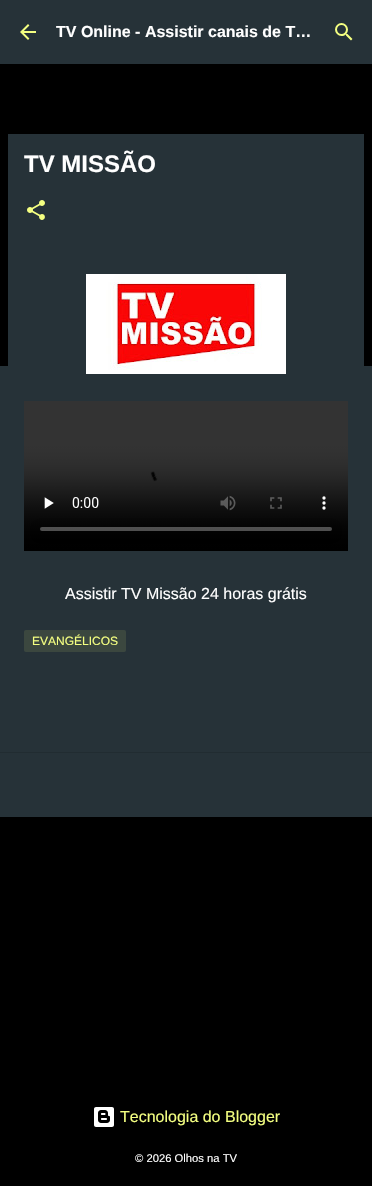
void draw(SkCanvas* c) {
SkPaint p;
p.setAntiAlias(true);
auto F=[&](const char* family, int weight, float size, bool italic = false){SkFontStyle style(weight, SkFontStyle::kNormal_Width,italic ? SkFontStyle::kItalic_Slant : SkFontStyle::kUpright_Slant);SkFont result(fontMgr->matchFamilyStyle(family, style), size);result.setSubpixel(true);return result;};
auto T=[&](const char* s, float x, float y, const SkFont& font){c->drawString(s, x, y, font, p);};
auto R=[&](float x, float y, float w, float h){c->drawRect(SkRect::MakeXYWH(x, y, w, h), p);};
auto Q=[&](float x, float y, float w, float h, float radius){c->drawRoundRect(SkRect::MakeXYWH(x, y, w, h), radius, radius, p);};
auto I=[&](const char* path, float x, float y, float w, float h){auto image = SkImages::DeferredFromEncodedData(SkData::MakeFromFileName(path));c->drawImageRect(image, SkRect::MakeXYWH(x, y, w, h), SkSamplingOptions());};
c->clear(0xff000000);
p.setColor(0xff263238);
R(0,0,372,64);
I("1.png",20,24,16,16);
auto f1 = F("Liberation Sans",700,16);
p.setColor(0xffffffff);
T("TV Online - Assistir canais de T…",56,37,f1);
I("2.png",335,23,18,18);
p.setColor(0xff263238);
R(0,366,372,386);
R(8,134,356,232);
auto f2 = F("Liberation Sans",700,24);
p.setColor(0xffffffff);
T("TV MISSÃO",24,172,f2);
I("3.png",27,200,18,20);
I("4.png",86,274,200,100);
I("5.png",24,401,324,150);
auto f3 = F("Liberation Sans",400,16);
T("Assistir TV Missão 24 horas grátis",65,599,f3);
p.setColor(0xff3b473f);
Q(24,630,102,22,2);
auto f4 = F("Liberation Sans",400,12);
p.setColor(0xfff4ff81);
T("EVANGÉLICOS",32,645,f4);
p.setColor(0xff263238);
R(0,753,372,64);
p.setColor(0xff212c31);
R(0,752,372,1);
I("6.png",94,1107,20,20);
p.setColor(0xfff4ff81);
T("Tecnologia do Blogger",120,1122,f3);
auto f5 = F("Liberation Sans",400,11.25);
p.setColor(0xffffffff);
T("© 2026 Olhos na TV",135,1162,f5);
}
